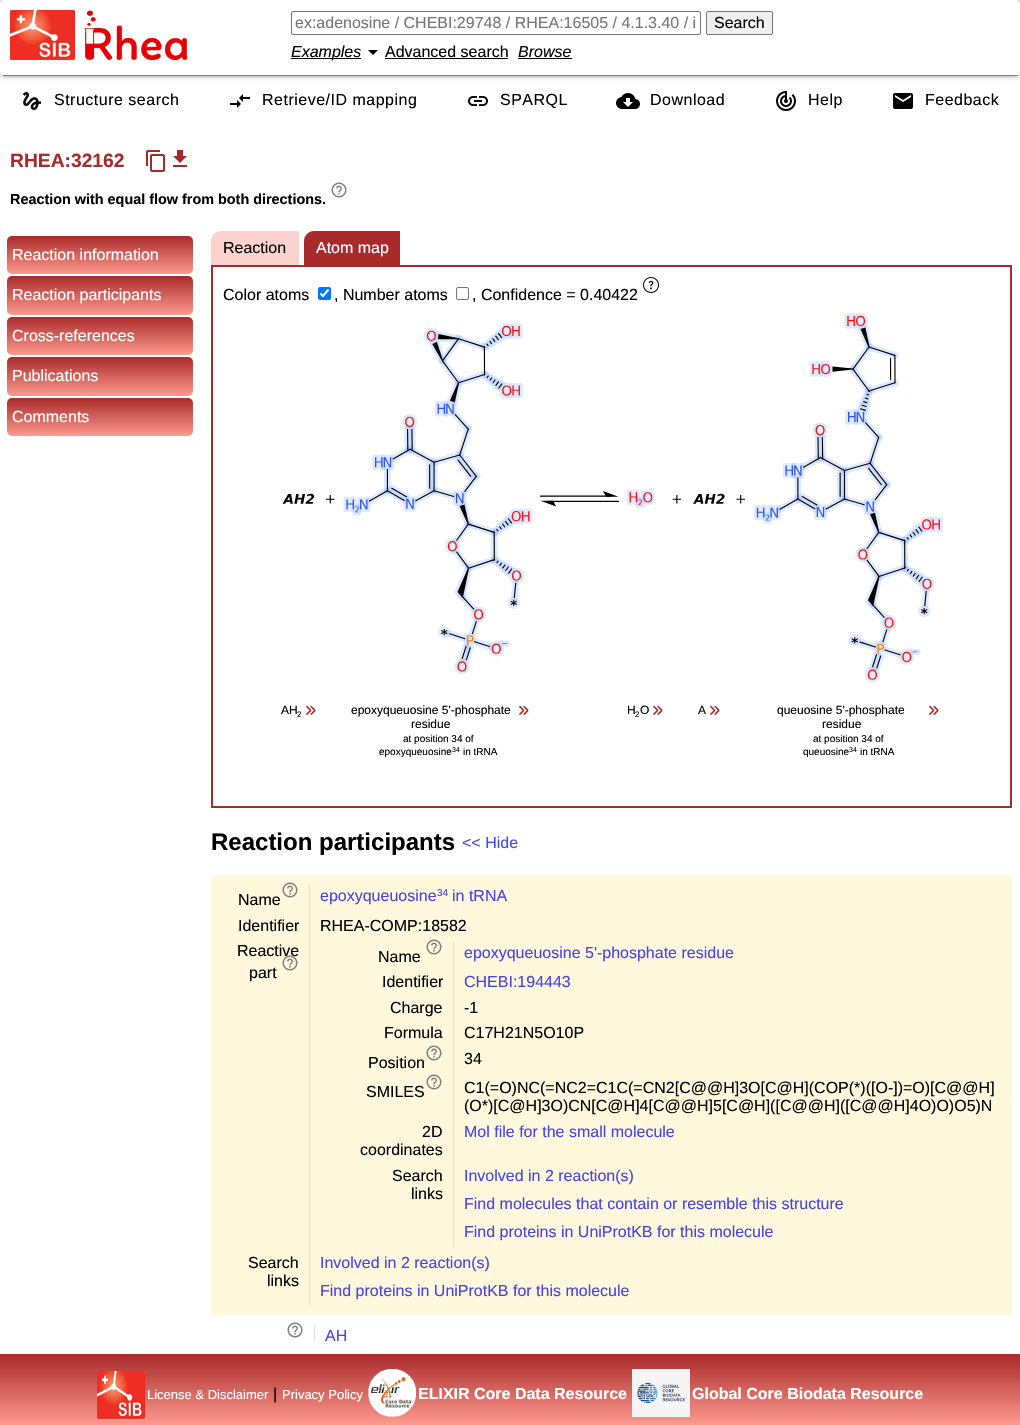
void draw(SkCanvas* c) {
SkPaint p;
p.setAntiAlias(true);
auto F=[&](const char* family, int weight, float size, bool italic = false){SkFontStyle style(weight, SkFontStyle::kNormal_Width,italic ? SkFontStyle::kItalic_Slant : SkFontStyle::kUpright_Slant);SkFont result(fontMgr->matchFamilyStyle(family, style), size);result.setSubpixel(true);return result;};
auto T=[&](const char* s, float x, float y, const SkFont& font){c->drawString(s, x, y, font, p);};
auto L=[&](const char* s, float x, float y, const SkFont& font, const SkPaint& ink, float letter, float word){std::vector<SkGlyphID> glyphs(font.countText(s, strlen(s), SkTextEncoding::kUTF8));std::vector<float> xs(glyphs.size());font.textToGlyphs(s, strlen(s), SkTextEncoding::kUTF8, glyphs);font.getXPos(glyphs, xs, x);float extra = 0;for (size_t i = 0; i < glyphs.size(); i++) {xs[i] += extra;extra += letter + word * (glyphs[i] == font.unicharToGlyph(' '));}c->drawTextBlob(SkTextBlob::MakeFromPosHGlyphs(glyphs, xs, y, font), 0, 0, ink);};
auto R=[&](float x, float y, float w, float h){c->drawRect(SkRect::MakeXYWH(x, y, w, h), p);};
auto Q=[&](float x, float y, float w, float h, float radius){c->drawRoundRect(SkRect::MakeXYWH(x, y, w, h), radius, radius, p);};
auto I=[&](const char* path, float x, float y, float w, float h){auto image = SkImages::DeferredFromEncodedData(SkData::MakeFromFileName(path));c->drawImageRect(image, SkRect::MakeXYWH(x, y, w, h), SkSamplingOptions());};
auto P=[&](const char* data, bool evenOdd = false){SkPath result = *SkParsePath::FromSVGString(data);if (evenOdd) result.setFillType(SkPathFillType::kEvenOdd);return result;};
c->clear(0xffffffff);
c->save();
c->clipPath(P("M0 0h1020v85h-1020zm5 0h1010c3 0 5 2 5 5v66c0 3-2 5-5 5h-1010c-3 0-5-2-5-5v-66c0-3 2-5 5-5z",true),true);
p.setColor(0xff888888);
p.setMaskFilter(SkMaskFilter::MakeBlur(kNormal_SkBlurStyle, 2.5));
c->drawRoundRect(SkRect::MakeXYWH(0,0,1020,76),5,5,p);
p.setMaskFilter(nullptr);
c->restore();
p.setColor(0xff808080);
R(3,75,1015,1);
I("1.png",10,10,65,50);
I("2.png",84,10,103,50);
p.setStroke(true);
p.setStrokeWidth(1);
p.setColor(0xff767676);
c->drawRoundRect(SkRect::MakeXYWH(291.5,11.5,409,23),1.5,1.5,p);
auto f1 = F("Liberation Sans",400,16);
p.setStroke(false);
p.setColor(0xff757575);
T("ex:adenosine / CHEBI:29748 / RHEA:16505 / 4.1.3.40 / i",295,28,f1);
p.setColor(0xffefefef);
c->drawRoundRect(SkRect::MakeXYWH(706.5,11.5,66,23),1.5,1.5,p);
p.setStroke(true);
p.setColor(0xff767676);
c->drawRoundRect(SkRect::MakeXYWH(706.5,11.5,66,23),1.5,1.5,p);
p.setStroke(false);
p.setColor(0xff000000);
T("Search",714,28,f1);
R(291,58,70,1);
auto f2 = F("Liberation Sans",400,16,true);
T("Examples",291,57,f2);
c->drawPath(P("M368 50l5 5l5-5z"),p);
T("Advanced search",385,57,f1);
R(385,58,123,1);
T("Browse",518,57,f2);
R(518,58,54,1);
I("3.png",22,92,19,18);
L("Structure search",54,105,f1,p,.5,0);
I("4.png",230,94,20,14);
L("Retrieve/ID mapping",262,105,f1,p,.5,0);
I("5.png",468,96,20,10);
L("SPARQL",500,105,f1,p,.5,0);
I("6.png",616,93,24,16);
L("Download",650,105,f1,p,.5,0);
I("7.png",776,91,20,20);
L("Help",808,105,f1,p,.5,0);
I("8.png",893,93,20,16);
L("Feedback",925,105,f1,p,.5,0);
auto f3 = F("Liberation Sans",700,19.25);
p.setColor(0xffa52a2a);
T("RHEA:32162",10,167,f3);
I("9.png",146,150,19,22);
I("10.png",173,150,14,17);
I("11.png",331,182,16,16);
auto f4 = F("Liberation Sans",700,14.4);
p.setColor(0xff000000);
T("Reaction with equal flow from both directions.",10,204,f4);
{
const SkColor colors[] = {0xffa92a2b,0xfffd9a8e};
const float stops[] = {0,1};
const SkPoint ends[] = {{100,236}, {100,274}};
p.setShader(SkGradientShader::MakeLinear(ends, colors, stops, 2, SkTileMode::kClamp));
p.setAlpha(255);
}
Q(7,236,186,38,5);
p.setShader(nullptr);
p.setColor(0xffffffff);
T("Reaction information",12,260,f1);
{
const SkColor colors[] = {0xffa92a2b,0xfffd9a8e};
const float stops[] = {0,1};
const SkPoint ends[] = {{100,276}, {100,315}};
p.setShader(SkGradientShader::MakeLinear(ends, colors, stops, 2, SkTileMode::kClamp));
p.setAlpha(255);
}
Q(7,276,186,39,5);
p.setShader(nullptr);
p.setColor(0xffffffff);
T("Reaction participants",12,300,f1);
{
const SkColor colors[] = {0xffa92a2b,0xfffd9a8e};
const float stops[] = {0,1};
const SkPoint ends[] = {{100,317}, {100,355}};
p.setShader(SkGradientShader::MakeLinear(ends, colors, stops, 2, SkTileMode::kClamp));
p.setAlpha(255);
}
Q(7,317,186,38,5);
p.setShader(nullptr);
p.setColor(0xffffffff);
T("Cross-references",12,341,f1);
{
const SkColor colors[] = {0xffa92a2b,0xfffd9a8e};
const float stops[] = {0,1};
const SkPoint ends[] = {{100,357}, {100,396}};
p.setShader(SkGradientShader::MakeLinear(ends, colors, stops, 2, SkTileMode::kClamp));
p.setAlpha(255);
}
Q(7,357,186,39,5);
p.setShader(nullptr);
p.setColor(0xffffffff);
T("Publications",12,381,f1);
{
const SkColor colors[] = {0xffa92a2b,0xfffd9a8e};
const float stops[] = {0,1};
const SkPoint ends[] = {{100,398}, {100,436}};
p.setShader(SkGradientShader::MakeLinear(ends, colors, stops, 2, SkTileMode::kClamp));
p.setAlpha(255);
}
Q(7,398,186,38,5);
p.setShader(nullptr);
p.setColor(0xffffffff);
T("Comments",12,422,f1);
p.setColor(0xfffbd2cd);
c->drawPath(P("M221 231h78v34h-88v-24c0-5.5 4.5-10 10-10z"),p);
p.setColor(0xff000000);
T("Reaction",223,253,f1);
p.setColor(0xffa92a2b);
c->drawPath(P("M314 231h86v34h-96v-24c0-5.5 4.5-10 10-10z"),p);
p.setColor(0xffffffff);
T("Atom map",316,253,f1);
p.setStroke(true);
p.setStrokeWidth(2);
p.setColor(0xffa92a2b);
c->drawRect(SkRect::MakeXYWH(212,266,799,541),p);
I("12.png",643,277,16,16);
p.setStroke(false);
p.setColor(0xff000000);
T("Color atoms",223,300,f1);
p.setColor(0xff0075ff);
Q(318,287,13,13,2);
p.setStroke(true);
p.setStrokeWidth(2.1);
p.setColor(0xffffffff);
c->drawPath(P("M320.5 293.5l2.5 2.5l5.5-6.5"),p);
p.setStroke(false);
p.setColor(0xff000000);
T(", Number atoms",334,300,f1);
p.setStroke(true);
p.setStrokeWidth(1);
p.setColor(0xff767676);
c->drawRoundRect(SkRect::MakeXYWH(456.5,287.5,12,12),1.5,1.5,p);
p.setStroke(false);
p.setColor(0xff000000);
T(", Confidence = 0.40422",472,300,f1);
I("13.png",282,313,661,370);
auto f5 = F("Liberation Sans",400,12);
T("AH",281,714,f5);
auto f6 = F("Liberation Sans",400,8);
T("2",297,717,f6);
I("14.png",306,705,10,10);
T("epoxyqueuosine 5'-phosphate",351,714,f5);
T("residue",411,728,f5);
I("14.png",519,705,10,10);
auto f7 = F("Liberation Sans",400,10);
T("at position 34 of",403,742,f7);
T("epoxyqueuosine",379,755,f7);
auto f8 = F("Liberation Sans",400,7);
T("34",452,752,f8);
T("in tRNA",463,755,f7);
T("H",627,714,f5);
T("2",635,717,f6);
T("O",640,714,f5);
I("14.png",653,705,10,10);
T("A",698,714,f5);
I("14.png",710,705,10,10);
T("queuosine 5'-phosphate",777,714,f5);
T("residue",822,728,f5);
I("14.png",929,705,10,10);
T("at position 34 of",813,742,f7);
T("queuosine",803,755,f7);
T("34",849,752,f8);
T("in tRNA",860,755,f7);
auto f9 = F("Liberation Sans",700,24);
T("Reaction participants",211,850,f9);
p.setColor(0xff4545f3);
T("<< Hide",462,848,f1);
p.setColor(0xfffff8dc);
R(211,875,801,440);
I("15.png",282,882,16,16);
p.setColor(0xff000000);
T("Name",238,905,f1);
p.setColor(0xffdedede);
R(309,885,1,420);
p.setColor(0xff4543e9);
T("epoxyqueuosine",320,901,f1);
T("34",437,896,f7);
T("in tRNA",452,901,f1);
p.setColor(0xff000000);
T("Identifier",238,931,f1);
T("RHEA-COMP:18582",320,931,f1);
T("Reactive",237,956,f1);
I("16.png",282,955,16,16);
T("part",249,978,f1);
I("15.png",426,939,16,16);
T("Name",378,962,f1);
p.setColor(0xffdedede);
R(453,942,1,305);
p.setColor(0xff4543e9);
T("epoxyqueuosine 5'-phosphate residue",464,958,f1);
p.setColor(0xff000000);
T("Identifier",382,987,f1);
p.setColor(0xff4543e9);
T("CHEBI:194443",464,987,f1);
p.setColor(0xff000000);
T("Charge",390,1013,f1);
T("-1",464,1013,f1);
T("Formula",384,1038,f1);
T("C17H21N5O10P",464,1038,f1);
I("15.png",426,1045,16,16);
T("Position",368,1068,f1);
T("34",464,1064,f1);
I("15.png",426,1074,16,16);
T("SMILES",366,1097,f1);
T("C1(=O)NC(=NC2=C1C(=CN2[C@@H]3O[C@H](COP(*)([O-])=O)[C@@H]",464,1093,f1);
T("(O*)[C@H]3O)CN[C@H]4[C@@H]5[C@H]([C@@H]([C@@H]4O)O)O5)N",464,1111,f1);
T("2D",422,1137,f1);
T("coordinates",360,1155,f1);
p.setColor(0xff4543e9);
T("Mol file for the small molecule",464,1137,f1);
p.setColor(0xff000000);
T("Search",392,1181,f1);
T("links",411,1199,f1);
p.setColor(0xff4543e9);
T("Involved in 2 reaction(s)",464,1181,f1);
T("Find molecules that contain or resemble this structure",464,1209,f1);
T("Find proteins in UniProtKB for this molecule",464,1237,f1);
p.setColor(0xff000000);
T("Search",248,1268,f1);
T("links",267,1286,f1);
p.setColor(0xff4543e9);
T("Involved in 2 reaction(s)",320,1268,f1);
T("Find proteins in UniProtKB for this molecule",320,1296,f1);
I("11.png",287,1322,16,16);
p.setColor(0xffdedede);
R(314,1325,1,16);
p.setColor(0xff4545f3);
T("AH",325,1341,f1);
{
const SkColor colors[] = {0xffa92a2b,0xfffd9a8e};
const float stops[] = {0,1};
const SkPoint ends[] = {{510,1354}, {510,1425}};
p.setShader(SkGradientShader::MakeLinear(ends, colors, stops, 2, SkTileMode::kClamp));
p.setAlpha(255);
}
R(0,1354,1020,71);
I("17.png",97,1371,48,48);
auto f10 = F("Liberation Sans",400,13);
p.setShader(nullptr);
p.setColor(0xffffffff);
T("License & Disclaimer",147,1399,f10);
p.setColor(0xff000000);
T("|",273,1399,f1);
p.setColor(0xffffffff);
T("Privacy Policy",282,1399,f10);
I("18.png",368,1369,48,48);
auto f11 = F("Liberation Sans",700,16);
T("ELIXIR Core Data Resource",418,1399,f11);
p.setColor(0xfff5f5f5);
R(632,1369,58,48);
I("19.png",637,1383,48,20);
p.setColor(0xffffffff);
T("Global Core Biodata Resource",692,1399,f11);
}
